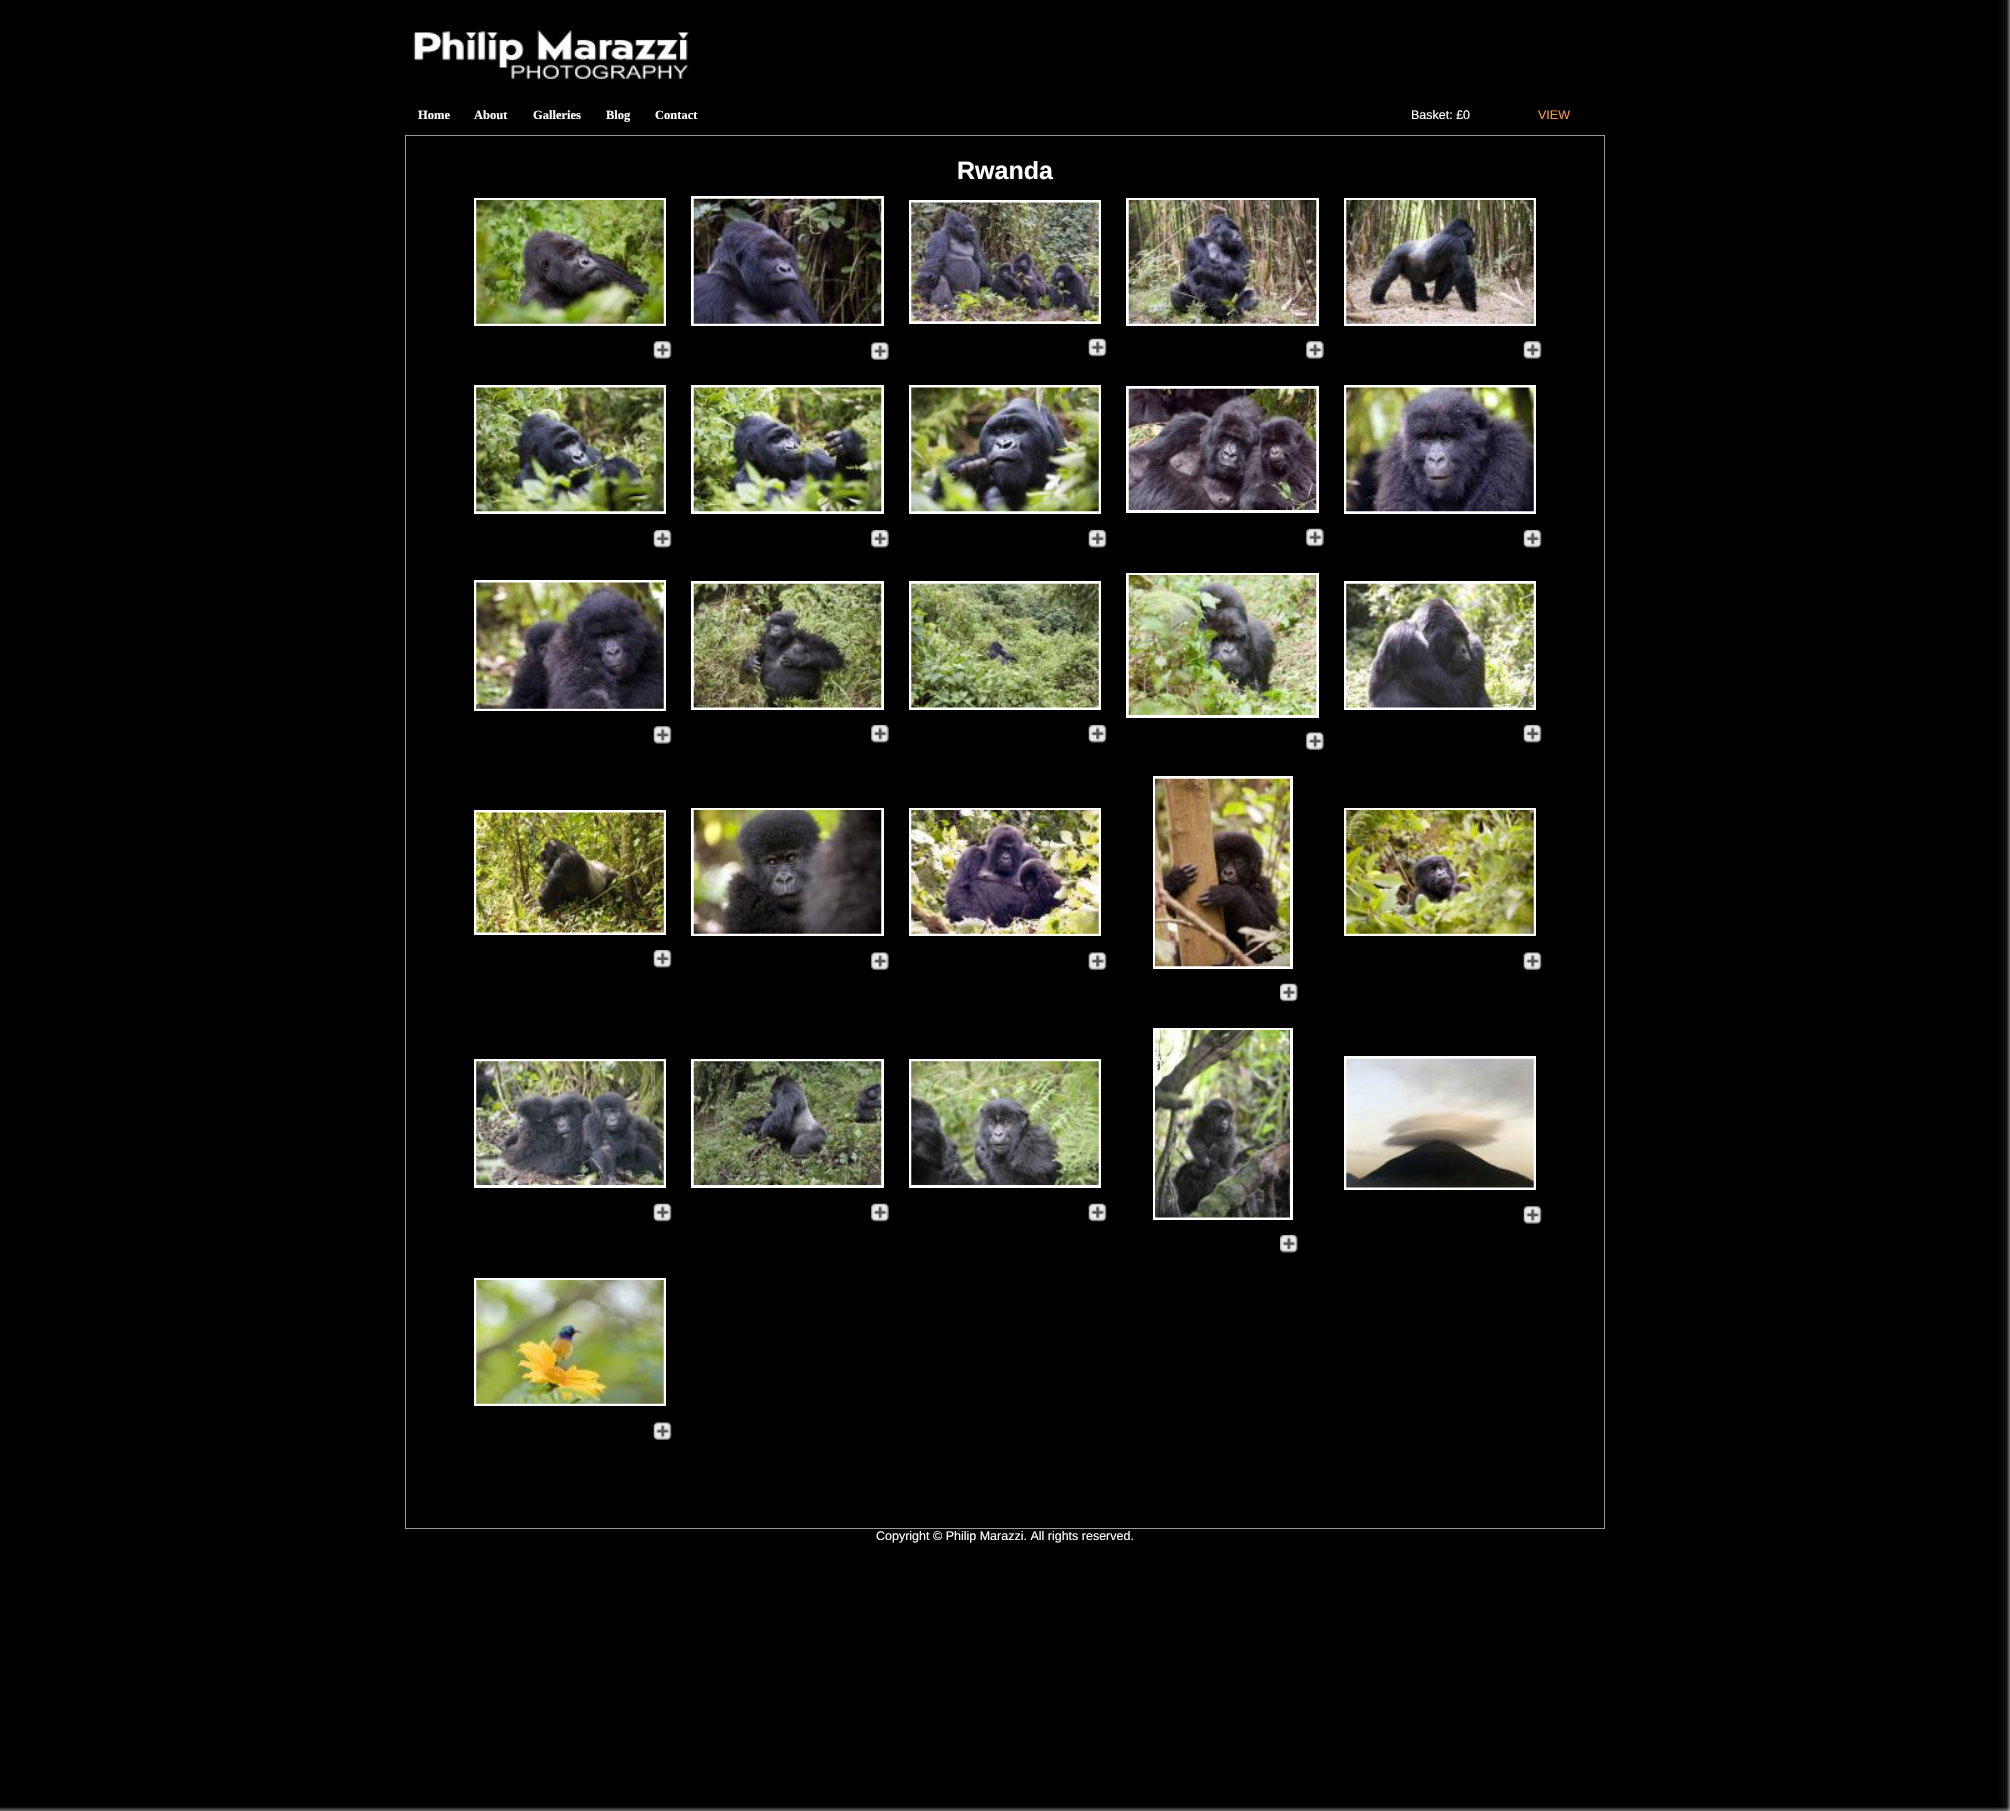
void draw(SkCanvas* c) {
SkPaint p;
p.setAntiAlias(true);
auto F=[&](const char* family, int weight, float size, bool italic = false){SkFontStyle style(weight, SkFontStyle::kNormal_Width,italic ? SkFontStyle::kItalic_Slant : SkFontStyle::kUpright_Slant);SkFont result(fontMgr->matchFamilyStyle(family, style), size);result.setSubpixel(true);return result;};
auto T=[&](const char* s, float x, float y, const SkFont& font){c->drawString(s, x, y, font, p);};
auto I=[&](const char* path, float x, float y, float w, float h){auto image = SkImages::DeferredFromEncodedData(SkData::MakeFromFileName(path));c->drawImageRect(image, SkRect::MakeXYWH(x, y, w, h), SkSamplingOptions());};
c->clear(0xffffffff);
I("1.png",0,0,2010,1811);
I("2.png",413,30,278,50);
auto f1 = F("Liberation Serif",700,12.5);
p.setColor(0xffffffff);
T("Home",418,119,f1);
T("About",474,119,f1);
T("Galleries",533,119,f1);
T("Blog",606,119,f1);
T("Contact",655,119,f1);
auto f2 = F("Liberation Sans",400,12.5);
T("Basket: £0",1411,119,f2);
p.setColor(0xffff9933);
T("VIEW",1538,119,f2);
p.setStroke(true);
p.setStrokeWidth(1);
p.setColor(0xff999999);
c->drawRect(SkRect::MakeXYWH(405.5,135.5,1199,1393),p);
auto f3 = F("Liberation Sans",700,25);
p.setStroke(false);
p.setColor(0xffffffff);
T("Rwanda",957,179,f3);
p.setStroke(true);
p.setStrokeWidth(3);
c->drawRect(SkRect::MakeXYWH(475.5,199.5,189,125),p);
I("3.png",476,200,188,124);
I("4.png",653,341,19,18);
c->drawRect(SkRect::MakeXYWH(692.5,197.5,190,127),p);
I("5.png",693,198,189,126);
I("6.png",871,342,18,18);
c->drawRect(SkRect::MakeXYWH(910.5,201.5,189,121),p);
I("7.png",911,202,188,120);
I("8.png",1088,338,19,19);
c->drawRect(SkRect::MakeXYWH(1127.5,199.5,190,125),p);
I("9.png",1128,200,189,124);
I("10.png",1306,341,18,18);
c->drawRect(SkRect::MakeXYWH(1345.5,199.5,189,125),p);
I("11.png",1346,200,188,124);
I("4.png",1523,341,19,18);
c->drawRect(SkRect::MakeXYWH(475.5,386.5,189,126),p);
I("12.png",476,387,188,125);
I("13.png",653,530,19,18);
c->drawRect(SkRect::MakeXYWH(692.5,386.5,190,126),p);
I("14.png",693,387,189,125);
I("15.png",871,530,18,18);
c->drawRect(SkRect::MakeXYWH(910.5,386.5,189,126),p);
I("16.png",911,387,188,125);
I("17.png",1088,530,19,18);
c->drawRect(SkRect::MakeXYWH(1127.5,387.5,190,124),p);
I("18.png",1128,388,189,122);
I("19.png",1306,528,18,19);
c->drawRect(SkRect::MakeXYWH(1345.5,386.5,189,126),p);
I("20.png",1346,387,188,125);
I("13.png",1523,530,19,18);
c->drawRect(SkRect::MakeXYWH(475.5,581.5,189,128),p);
I("21.png",476,582,188,127);
I("4.png",653,726,19,18);
c->drawRect(SkRect::MakeXYWH(692.5,582.5,190,126),p);
I("22.png",693,583,189,125);
I("15.png",871,725,18,18);
c->drawRect(SkRect::MakeXYWH(910.5,582.5,189,126),p);
I("23.png",911,583,188,125);
I("17.png",1088,725,19,18);
c->drawRect(SkRect::MakeXYWH(1127.5,574.5,190,142),p);
I("24.png",1128,575,189,140);
I("6.png",1306,732,18,18);
c->drawRect(SkRect::MakeXYWH(1345.5,582.5,189,126),p);
I("25.png",1346,583,188,125);
I("13.png",1523,725,19,18);
c->drawRect(SkRect::MakeXYWH(475.5,811.5,189,122),p);
I("26.png",476,812,188,121);
I("13.png",653,950,19,18);
c->drawRect(SkRect::MakeXYWH(692.5,809.5,190,125),p);
I("27.png",693,810,189,124);
I("6.png",871,952,18,18);
c->drawRect(SkRect::MakeXYWH(910.5,809.5,189,125),p);
I("28.png",911,810,188,124);
I("29.png",1088,952,19,18);
c->drawRect(SkRect::MakeXYWH(1154.5,777.5,137,190),p);
I("30.png",1155,778,135,189);
I("31.png",1280,983,18,19);
c->drawRect(SkRect::MakeXYWH(1345.5,809.5,189,125),p);
I("32.png",1346,810,188,124);
I("33.png",1523,952,19,18);
c->drawRect(SkRect::MakeXYWH(475.5,1060.5,189,126),p);
I("34.png",476,1061,188,124);
I("35.png",653,1203,19,19);
c->drawRect(SkRect::MakeXYWH(692.5,1060.5,190,126),p);
I("36.png",693,1061,189,124);
I("19.png",871,1203,18,19);
c->drawRect(SkRect::MakeXYWH(910.5,1060.5,189,126),p);
I("37.png",911,1061,188,124);
I("8.png",1088,1203,19,19);
c->drawRect(SkRect::MakeXYWH(1154.5,1029.5,137,189),p);
I("38.png",1155,1030,135,188);
I("39.png",1280,1235,18,18);
c->drawRect(SkRect::MakeXYWH(1345.5,1057.5,189,131),p);
I("40.png",1346,1058,188,130);
I("4.png",1523,1206,19,18);
c->drawRect(SkRect::MakeXYWH(475.5,1279.5,189,125),p);
I("41.png",476,1280,188,124);
I("33.png",653,1422,19,18);
p.setStroke(false);
T("Copyright © Philip Marazzi. All rights reserved.",876,1540,f2);
}
